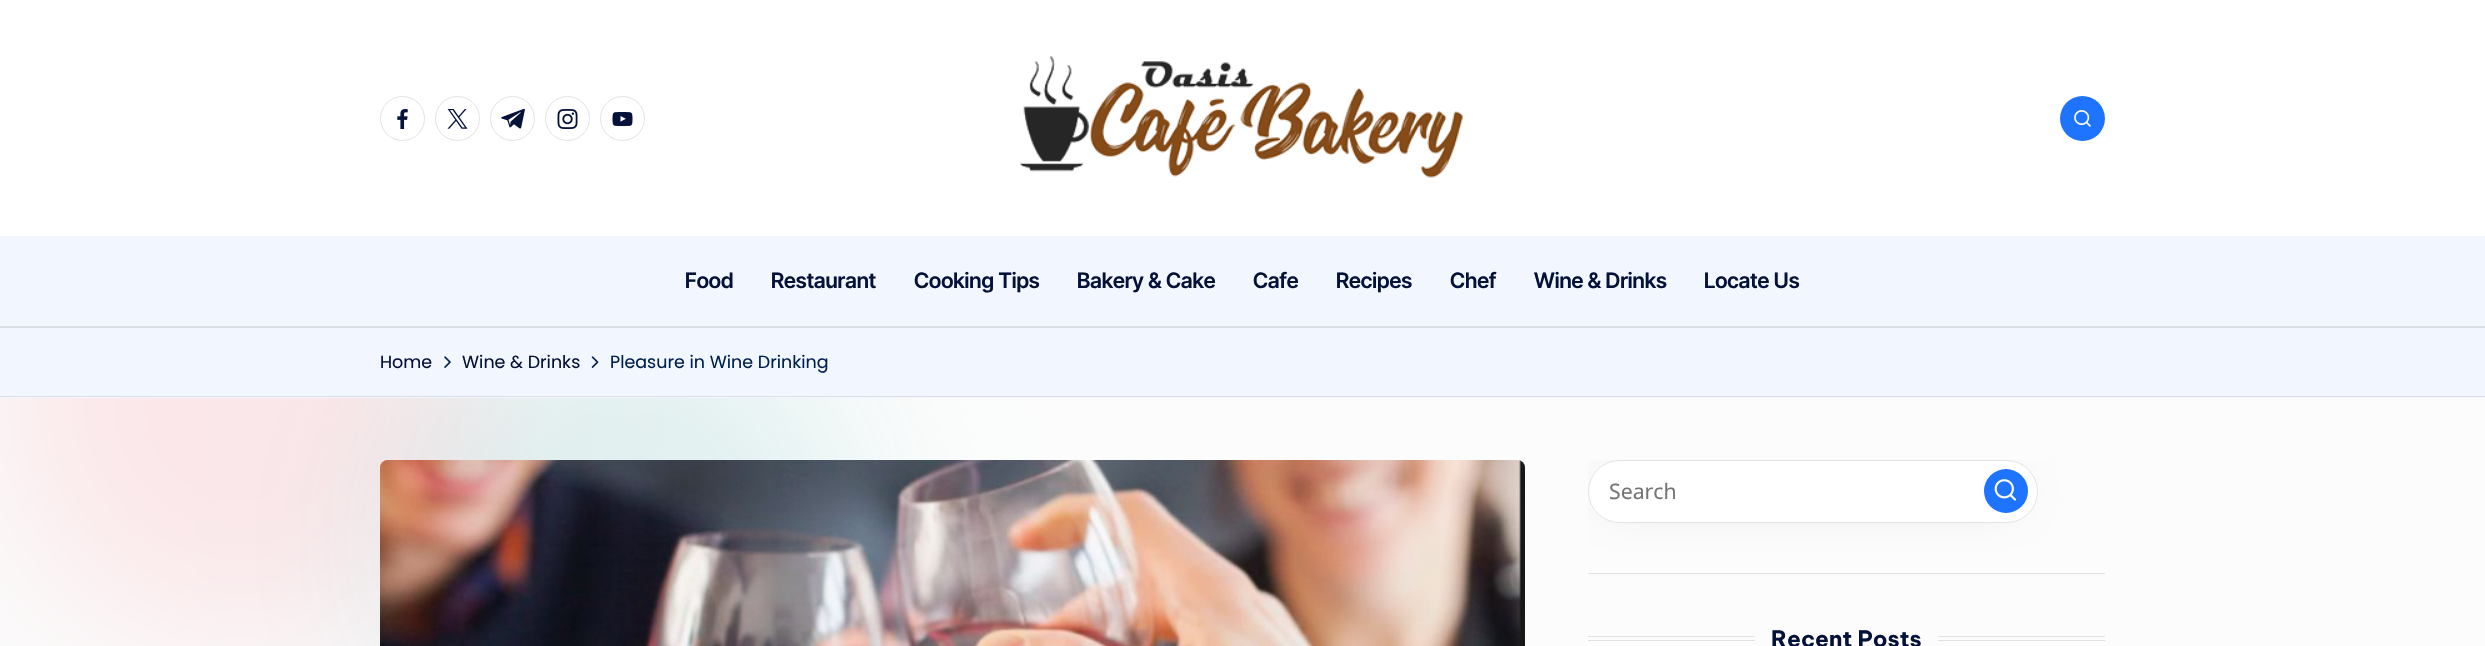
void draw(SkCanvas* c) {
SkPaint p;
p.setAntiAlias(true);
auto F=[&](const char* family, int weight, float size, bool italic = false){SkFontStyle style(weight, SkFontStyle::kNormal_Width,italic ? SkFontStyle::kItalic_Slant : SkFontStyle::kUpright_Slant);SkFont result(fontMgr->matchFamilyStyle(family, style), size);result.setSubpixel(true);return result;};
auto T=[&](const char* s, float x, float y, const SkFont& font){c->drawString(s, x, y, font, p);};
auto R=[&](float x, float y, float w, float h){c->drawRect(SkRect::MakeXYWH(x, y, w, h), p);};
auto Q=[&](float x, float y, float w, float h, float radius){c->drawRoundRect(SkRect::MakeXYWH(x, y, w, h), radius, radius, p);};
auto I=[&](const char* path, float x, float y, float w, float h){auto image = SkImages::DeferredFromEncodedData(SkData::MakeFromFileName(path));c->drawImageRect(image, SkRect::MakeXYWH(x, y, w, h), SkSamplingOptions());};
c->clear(0xfffcfcfc);
p.setColor(0xfffbe7e9);
p.setMaskFilter(SkMaskFilter::MakeBlur(kNormal_SkBlurStyle, 80));
c->drawRoundRect(SkRect::MakeXYWH(0,163,480,480),240,240,p);
p.setMaskFilter(nullptr);
p.setColor(0x1a04868b);
p.setMaskFilter(SkMaskFilter::MakeBlur(kNormal_SkBlurStyle, 80));
c->drawRoundRect(SkRect::MakeXYWH(380,300,480,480),240,240,p);
p.setMaskFilter(nullptr);
p.setColor(0xffffffff);
R(0,0,2485,236);
p.setStroke(true);
p.setStrokeWidth(1);
p.setColor(0xffe3e3e3);
c->drawCircle(402.5,118.5,22,p);
I("1.png",397,109,11,20);
c->drawCircle(457.5,118.5,22,p);
I("2.png",447,109,21,20);
c->drawCircle(512.5,118.5,22,p);
I("3.png",501,109,24,20);
c->drawCircle(567.5,118.5,22,p);
I("4.png",557,109,21,20);
c->drawCircle(622.5,118.5,22,p);
I("5.png",612,112,21,15);
I("6.png",1020,56,444,122);
p.setStroke(false);
p.setColor(0xff1e73ff);
c->drawCircle(2082.5,118.5,22.5,p);
I("7.png",2074,110,17,17);
p.setColor(0xfff1f6ff);
R(0,236,2485,90);
auto f1 = F("Inter Tight",600,21.25);
p.setColor(0xff041139);
T("Food",685,288,f1);
T("Restaurant",771,288,f1);
T("Cooking Tips",914,288,f1);
T("Bakery & Cake",1077,288,f1);
T("Cafe",1253,288,f1);
T("Recipes",1336,288,f1);
T("Chef",1450,288,f1);
T("Wine & Drinks",1534,288,f1);
T("Locate Us",1704,288,f1);
p.setColor(0xfff1f6ff);
R(0,328,2485,70);
p.setColor(0xffdbdee3);
R(0,326,2485,2);
R(0,396,2485,1);
auto f2 = F("Poppins",400,17.5);
p.setColor(0xff041139);
T("Home",380,368,f2);
I("8.png",444,356,7,12);
T("Wine & Drinks",462,368,f2);
I("9.png",591,356,8,12);
p.setColor(0xff002050);
T("Pleasure in Wine Drinking",610,368,f2);
I("10.png",380,460,1145,186);
p.setColor(0xffe1e1e1);
R(1588,573,517,1);
c->save();
c->clipRect(SkRect::MakeXYWH(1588,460,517,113));
p.setColor(0x26000000);
p.setMaskFilter(SkMaskFilter::MakeBlur(kNormal_SkBlurStyle, 20));
c->drawRoundRect(SkRect::MakeXYWH(1604,480,410,23),11.5,11.5,p);
p.setMaskFilter(nullptr);
c->restore();
p.setColor(0xffffffff);
Q(1588,460,450,63,31.5);
p.setStroke(true);
p.setColor(0x66b9b9b9);
c->drawRoundRect(SkRect::MakeXYWH(1588.5,460.5,449,62),31,31,p);
auto f3 = F("Noto Sans",400,21.25);
p.setStroke(false);
p.setColor(0xff757575);
T("Search",1609,499,f3);
p.setColor(0xff1e73ff);
c->drawCircle(2006,491,22,p);
I("11.png",1994,479,22,22);
p.setColor(0xffe1e1e1);
R(1588,636,167,1);
R(1588,640,167,1);
auto f4 = F("Be Vietnam Pro",700,22.5);
p.setColor(0xff041139);
T("Recent Posts",1771,647,f4);
p.setColor(0xffe1e1e1);
R(1938,636,167,1);
R(1938,640,167,1);
}
